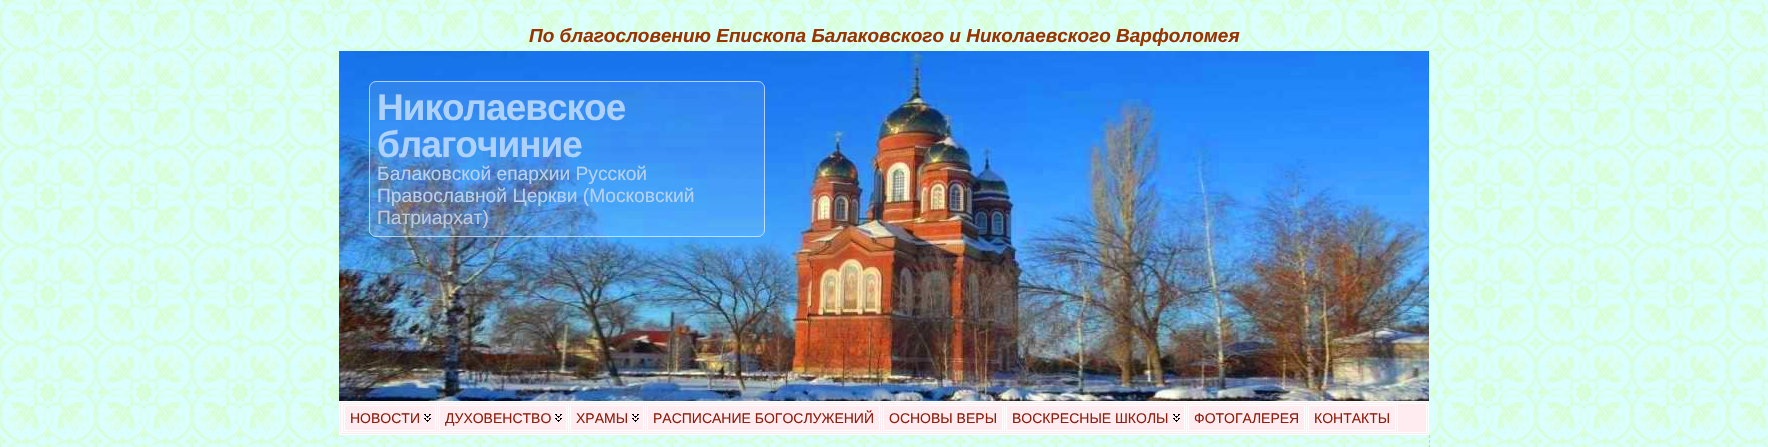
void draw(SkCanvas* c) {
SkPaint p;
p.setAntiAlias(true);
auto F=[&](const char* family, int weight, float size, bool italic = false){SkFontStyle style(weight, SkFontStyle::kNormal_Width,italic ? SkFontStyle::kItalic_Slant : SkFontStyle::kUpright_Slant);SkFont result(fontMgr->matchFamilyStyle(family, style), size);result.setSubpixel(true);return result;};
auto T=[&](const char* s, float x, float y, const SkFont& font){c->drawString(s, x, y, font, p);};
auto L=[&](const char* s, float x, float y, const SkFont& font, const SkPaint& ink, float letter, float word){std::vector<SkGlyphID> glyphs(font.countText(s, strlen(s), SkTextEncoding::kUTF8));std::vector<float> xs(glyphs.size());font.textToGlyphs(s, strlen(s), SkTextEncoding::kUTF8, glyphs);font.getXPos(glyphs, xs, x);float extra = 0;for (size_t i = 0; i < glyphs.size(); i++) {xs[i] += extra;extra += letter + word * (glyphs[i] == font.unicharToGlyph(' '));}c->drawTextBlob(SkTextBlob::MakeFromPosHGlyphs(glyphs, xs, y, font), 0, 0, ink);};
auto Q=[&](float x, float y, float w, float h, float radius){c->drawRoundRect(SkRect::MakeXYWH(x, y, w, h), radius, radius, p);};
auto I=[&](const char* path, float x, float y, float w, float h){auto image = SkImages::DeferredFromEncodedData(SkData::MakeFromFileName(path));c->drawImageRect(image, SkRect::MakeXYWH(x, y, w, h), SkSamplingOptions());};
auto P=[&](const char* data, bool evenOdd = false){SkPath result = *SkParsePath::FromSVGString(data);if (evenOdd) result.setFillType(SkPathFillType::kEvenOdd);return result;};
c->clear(0xffffffff);
I("1.png",0,0,1768,447);
auto f1 = F("Liberation Sans",700,19,true);
p.setColor(0xff993300);
T("По благословению Епископа Балаковского и Николаевского Варфоломея",529,42,f1);
I("2.png",339,51,1090,350);
p.setColor(0x17ffffff);
Q(369,81,396,156,7);
p.setStroke(true);
p.setStrokeWidth(1);
p.setColor(0x99ffffff);
c->drawRoundRect(SkRect::MakeXYWH(369.5,81.5,395,155),6.5,6.5,p);
auto f2 = F("Liberation Sans",700,37);
p.setStroke(false);
p.setColor(0xffadd1fa);
L("Николаевское",377,120,f2,p,-1,0);
L("благочиние",377,157,f2,p,-1,0);
auto f3 = F("Liberation Sans",400,19.25);
p.setColor(0xffb6d1f0);
T("Балаковской епархии Русской",377,180,f3);
T("Православной Церкви (Московский",377,202,f3);
p.setColor(0xffbecadb);
T("Патриархат)",377,224,f3);
p.setColor(0xffffecf1);
c->drawRect(SkRect::MakeXYWH(339.5,401.5,1089,33),p);
p.setStroke(true);
p.setColor(0xffffffff);
c->drawRect(SkRect::MakeXYWH(339.5,401.5,1089,33),p);
c->drawRect(SkRect::MakeXYWH(341.5,403.5,1085,29),p);
I("3.png",424,414,7,8);
c->drawRect(SkRect::MakeXYWH(342.5,403.5,95,29),p);
c->drawRect(SkRect::MakeXYWH(344.5,405.5,91,25),p);
auto f4 = F("Liberation Sans",400,14);
p.setStroke(false);
p.setColor(0xff901d0d);
T("НОВОСТИ",350,423,f4);
I("3.png",555,414,7,8);
p.setStroke(true);
p.setColor(0xffffffff);
c->drawRect(SkRect::MakeXYWH(437.5,403.5,131,29),p);
c->drawRect(SkRect::MakeXYWH(439.5,405.5,127,25),p);
p.setStroke(false);
p.setColor(0xff901d0d);
T("ДУХОВЕНСТВО",445,423,f4);
I("3.png",632,414,7,8);
p.setStroke(true);
p.setColor(0xffffffff);
c->drawRect(SkRect::MakeXYWH(568.5,403.5,77,29),p);
c->drawRect(SkRect::MakeXYWH(570.5,405.5,73,25),p);
p.setStroke(false);
p.setColor(0xff901d0d);
T("ХРАМЫ",576,423,f4);
p.setStroke(true);
p.setColor(0xffffffff);
c->drawRect(SkRect::MakeXYWH(645.5,403.5,236,29),p);
c->drawRect(SkRect::MakeXYWH(647.5,405.5,232,25),p);
p.setStroke(false);
p.setColor(0xff901d0d);
T("РАСПИСАНИЕ БОГОСЛУЖЕНИЙ",653,423,f4);
p.setStroke(true);
p.setColor(0xffffffff);
c->drawRect(SkRect::MakeXYWH(881.5,403.5,123,29),p);
c->drawRect(SkRect::MakeXYWH(883.5,405.5,119,25),p);
p.setStroke(false);
p.setColor(0xff901d0d);
T("ОСНОВЫ ВЕРЫ",889,423,f4);
I("3.png",1173,414,7,8);
p.setStroke(true);
p.setColor(0xffffffff);
c->drawRect(SkRect::MakeXYWH(1004.5,403.5,182,29),p);
c->drawRect(SkRect::MakeXYWH(1006.5,405.5,178,25),p);
p.setStroke(false);
p.setColor(0xff901d0d);
T("ВОСКРЕСНЫЕ ШКОЛЫ",1012,423,f4);
p.setStroke(true);
p.setColor(0xffffffff);
c->drawRect(SkRect::MakeXYWH(1186.5,403.5,120,29),p);
c->drawRect(SkRect::MakeXYWH(1188.5,405.5,116,25),p);
p.setStroke(false);
p.setColor(0xff901d0d);
T("ФОТОГАЛЕРЕЯ",1194,423,f4);
p.setStroke(true);
p.setColor(0xffffffff);
c->drawRect(SkRect::MakeXYWH(1306.5,403.5,91,29),p);
c->drawRect(SkRect::MakeXYWH(1308.5,405.5,87,25),p);
p.setStroke(false);
p.setColor(0xff901d0d);
T("КОНТАКТЫ",1314,423,f4);
p.setStroke(true);
p.setColor(0xffcccccc);
p.setPathEffect(SkDashPathEffect::Make({{3,1.99f}}, 0));
c->drawPath(P("M1429.5 435v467"),p);
p.setPathEffect(nullptr);
}
